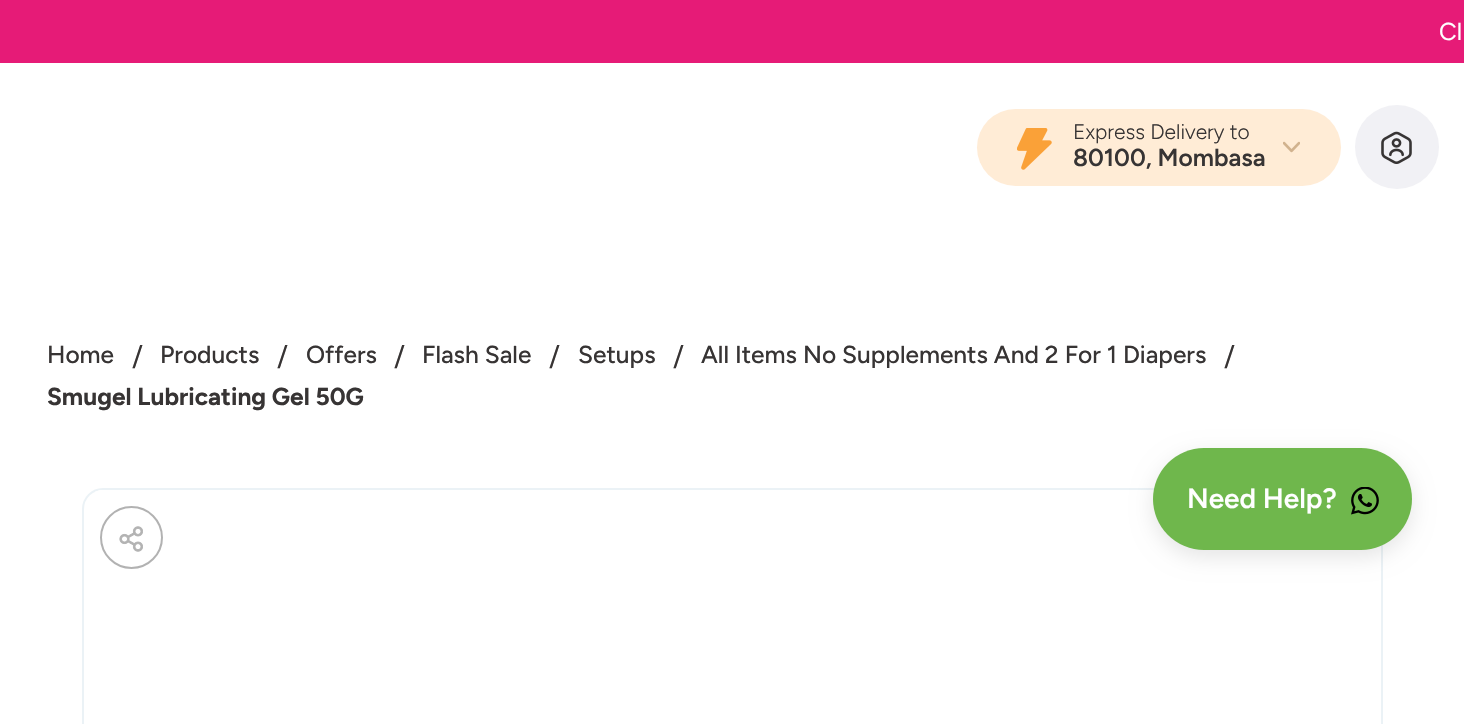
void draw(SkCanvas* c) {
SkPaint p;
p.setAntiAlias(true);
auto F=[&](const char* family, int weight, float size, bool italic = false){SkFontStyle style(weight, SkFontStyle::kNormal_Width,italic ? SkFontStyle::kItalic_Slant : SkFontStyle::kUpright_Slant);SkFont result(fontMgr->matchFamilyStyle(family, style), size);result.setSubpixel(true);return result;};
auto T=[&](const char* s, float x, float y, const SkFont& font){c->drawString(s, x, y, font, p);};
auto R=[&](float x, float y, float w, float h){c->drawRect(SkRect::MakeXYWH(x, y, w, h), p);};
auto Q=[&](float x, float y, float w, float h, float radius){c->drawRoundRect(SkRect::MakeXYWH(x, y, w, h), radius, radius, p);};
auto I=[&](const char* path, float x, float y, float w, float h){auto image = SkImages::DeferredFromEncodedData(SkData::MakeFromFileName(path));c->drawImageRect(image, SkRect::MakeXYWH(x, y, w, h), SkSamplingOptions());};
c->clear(0xffffffff);
p.setColor(0xffe61b77);
R(0,0,1464,63);
auto f1 = F("Figtree",400,24.5);
p.setColor(0xffffffff);
T("Cl",1439,40,f1);
p.setColor(0xffffecd6);
Q(977,109,364,77,38.5);
I("1.png",1017,128,35,42);
auto f2 = F("Figtree",300,21);
p.setColor(0xff373434);
T("Express Delivery to",1073,139,f2);
auto f3 = F("Figtree",600,24.5);
T("80100, Mombasa",1073,166,f3);
I("2.png",1283,141,17,12);
p.setColor(0xfff1f1f5);
c->drawCircle(1397,147,42,p);
I("3.png",1381,131,31,33);
auto f4 = F("Figtree",500,24.5);
p.setColor(0xff373434);
T("Home",47,363,f4);
auto f5 = F("Figtree",400,28);
T("/",132,366,f5);
T("Products",160,363,f4);
T("/",277,366,f5);
T("Offers",306,363,f4);
T("/",394,366,f5);
T("Flash Sale",422,363,f4);
T("/",549,366,f5);
T("Setups",578,363,f4);
T("/",673,366,f5);
T("All Items No Supplements And 2 For 1 Diapers",701,363,f4);
T("/",1224,366,f5);
auto f6 = F("Figtree",700,24.5);
T("Smugel Lubricating Gel 50G",47,405,f6);
p.setStroke(true);
p.setStrokeWidth(2);
p.setColor(0xffebf2f6);
c->drawRoundRect(SkRect::MakeXYWH(83,489,1299,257),20,20,p);
I("4.png",95,490,1059,2);
p.setColor(0xffb2b2b2);
c->drawCircle(131.5,537.5,30.5,p);
I("5.png",119,526,24,26);
p.setStroke(false);
p.setColor(0x1a000000);
p.setMaskFilter(SkMaskFilter::MakeBlur(kNormal_SkBlurStyle, 10.5));
c->drawRoundRect(SkRect::MakeXYWH(1153,455,259,102),51,51,p);
p.setMaskFilter(nullptr);
p.setColor(0xff6fb74c);
Q(1153,448,259,102,51);
auto f7 = F("Figtree",600,28);
p.setColor(0xffffffff);
T("Need Help?",1187,508,f7);
I("6.png",1351,487,28,28);
}
